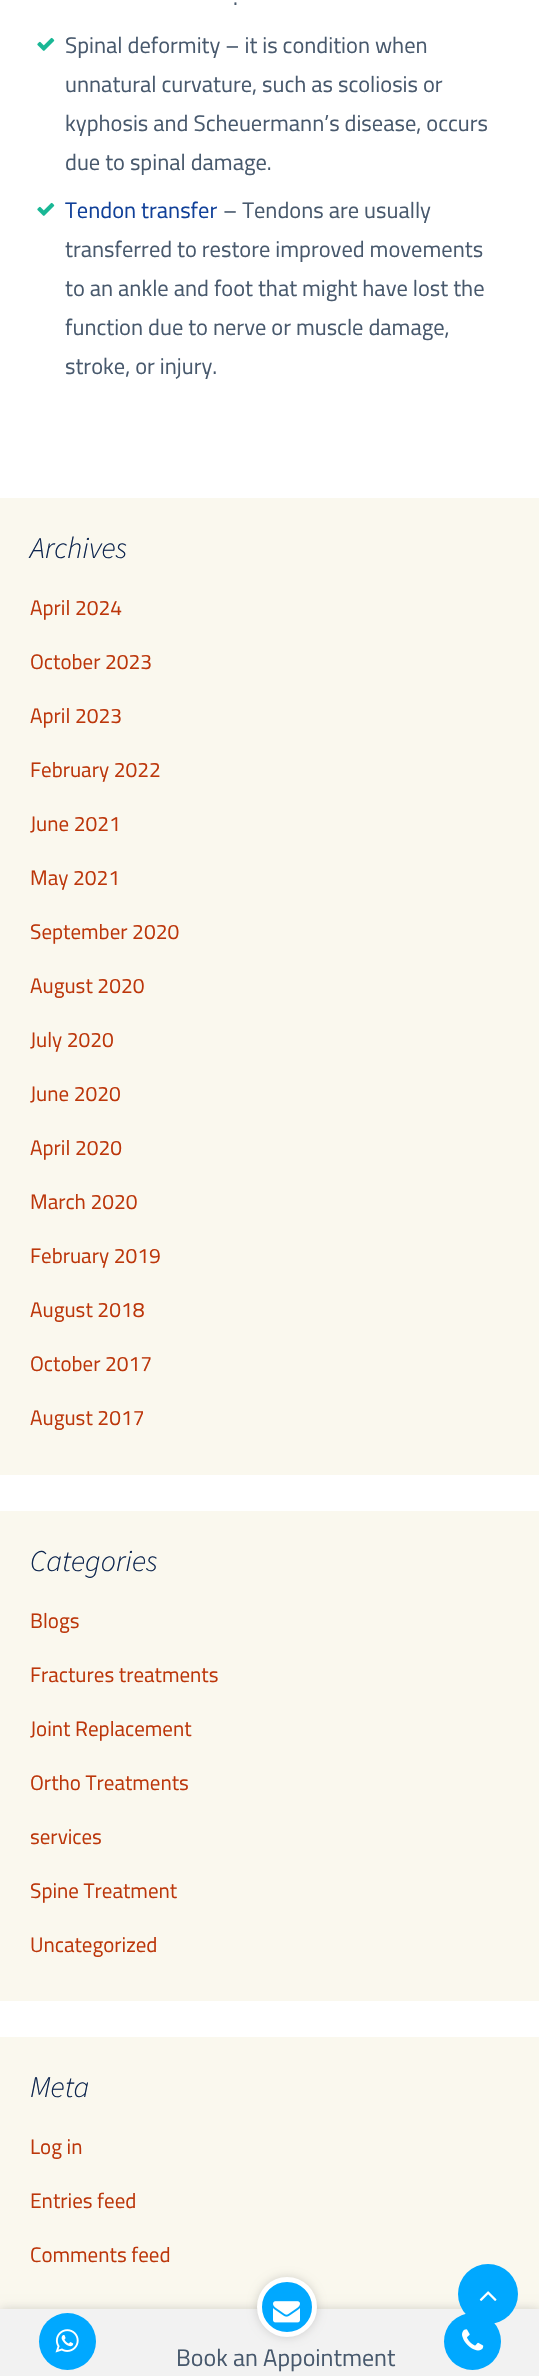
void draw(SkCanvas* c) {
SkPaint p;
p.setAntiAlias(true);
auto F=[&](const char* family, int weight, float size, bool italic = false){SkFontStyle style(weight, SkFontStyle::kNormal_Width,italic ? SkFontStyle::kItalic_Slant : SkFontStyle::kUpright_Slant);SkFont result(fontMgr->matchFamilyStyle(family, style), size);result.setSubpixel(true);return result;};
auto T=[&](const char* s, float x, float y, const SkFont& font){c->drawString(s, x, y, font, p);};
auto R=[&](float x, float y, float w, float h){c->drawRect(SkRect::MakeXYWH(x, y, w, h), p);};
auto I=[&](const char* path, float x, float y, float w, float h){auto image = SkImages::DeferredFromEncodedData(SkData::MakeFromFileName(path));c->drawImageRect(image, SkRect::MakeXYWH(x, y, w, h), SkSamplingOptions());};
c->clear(0xffffffff);
auto f1 = F("Titillium Web",400,22.5);
p.setColor(0xff48596d);
T(".",233,5,f1);
I("1.png",37,37,18,14);
T("Spinal deformity – it is condition when",65,53,f1);
T("unnatural curvature, such as scoliosis or",65,92,f1);
T("kyphosis and Scheuermann’s disease, occurs",65,131,f1);
T("due to spinal damage.",65,170,f1);
I("1.png",37,202,18,14);
p.setColor(0xff104099);
T("Tendon transfer",65,218,f1);
p.setColor(0xff48596d);
T("– Tendons are usually",223,218,f1);
T("transferred to restore improved movements",65,257,f1);
T("to an ankle and foot that might have lost the",65,296,f1);
T("function due to nerve or muscle damage,",65,335,f1);
T("stroke, or injury.",65,374,f1);
p.setColor(0xfffaf8ee);
R(0,498,539,977);
auto f2 = F("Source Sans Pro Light",300,30,true);
p.setColor(0xff0e264f);
T("Archives",30,558,f2);
auto f3 = F("Titillium Web",400,21);
p.setColor(0xffbc360a);
T("April 2024",30,615,f3);
T("October 2023",30,669,f3);
T("April 2023",30,723,f3);
T("February 2022",30,777,f3);
T("June 2021",30,831,f3);
T("May 2021",30,885,f3);
T("September 2020",30,939,f3);
T("August 2020",30,993,f3);
T("July 2020",30,1047,f3);
T("June 2020",30,1101,f3);
T("April 2020",30,1155,f3);
T("March 2020",30,1209,f3);
T("February 2019",30,1263,f3);
T("August 2018",30,1317,f3);
T("October 2017",30,1371,f3);
T("August 2017",30,1425,f3);
p.setColor(0xfffaf8ee);
R(0,1511,539,490);
p.setColor(0xff0e264f);
T("Categories",30,1571,f2);
p.setColor(0xffbc360a);
T("Blogs",30,1628,f3);
T("Fractures treatments",30,1682,f3);
T("Joint Replacement",30,1736,f3);
T("Ortho Treatments",30,1790,f3);
T("services",30,1844,f3);
T("Spine Treatment",30,1898,f3);
T("Uncategorized",30,1952,f3);
p.setColor(0xfffaf8ee);
R(0,2037,539,272);
p.setColor(0xff0e264f);
T("Meta",30,2097,f2);
p.setColor(0xffbc360a);
T("Log in",30,2154,f3);
T("Entries feed",30,2208,f3);
T("Comments feed",30,2262,f3);
p.setColor(0x29000000);
p.setMaskFilter(SkMaskFilter::MakeBlur(kNormal_SkBlurStyle, 5));
c->drawRect(SkRect::MakeXYWH(0,2309,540,67),p);
p.setMaskFilter(nullptr);
p.setColor(0xfff2f2f2);
R(0,2309,539,67);
p.setColor(0xff00a8ff);
c->drawCircle(472.5,2341.5,28.5,p);
c->drawCircle(488,2294,30,p);
I("2.png",479,2291,18,10);
c->drawCircle(67.5,2341.5,28.5,p);
I("3.png",55,2329,24,24);
p.setColor(0x29000000);
p.setMaskFilter(SkMaskFilter::MakeBlur(kNormal_SkBlurStyle, 5));
c->drawRoundRect(SkRect::MakeXYWH(257,2277,60,60),30,30,p);
p.setMaskFilter(nullptr);
p.setColor(0xff00a8ff);
c->drawCircle(287,2307,27.5,p);
p.setStroke(true);
p.setStrokeWidth(5);
p.setColor(0xffffffff);
c->drawCircle(287,2307,27.5,p);
I("4.png",273,2301,27,22);
auto f4 = F("Titillium Web",400,24);
p.setStroke(false);
p.setColor(0xff48596d);
T("Book an Appointment",176,2366,f4);
I("5.png",462,2329,22,22);
}
